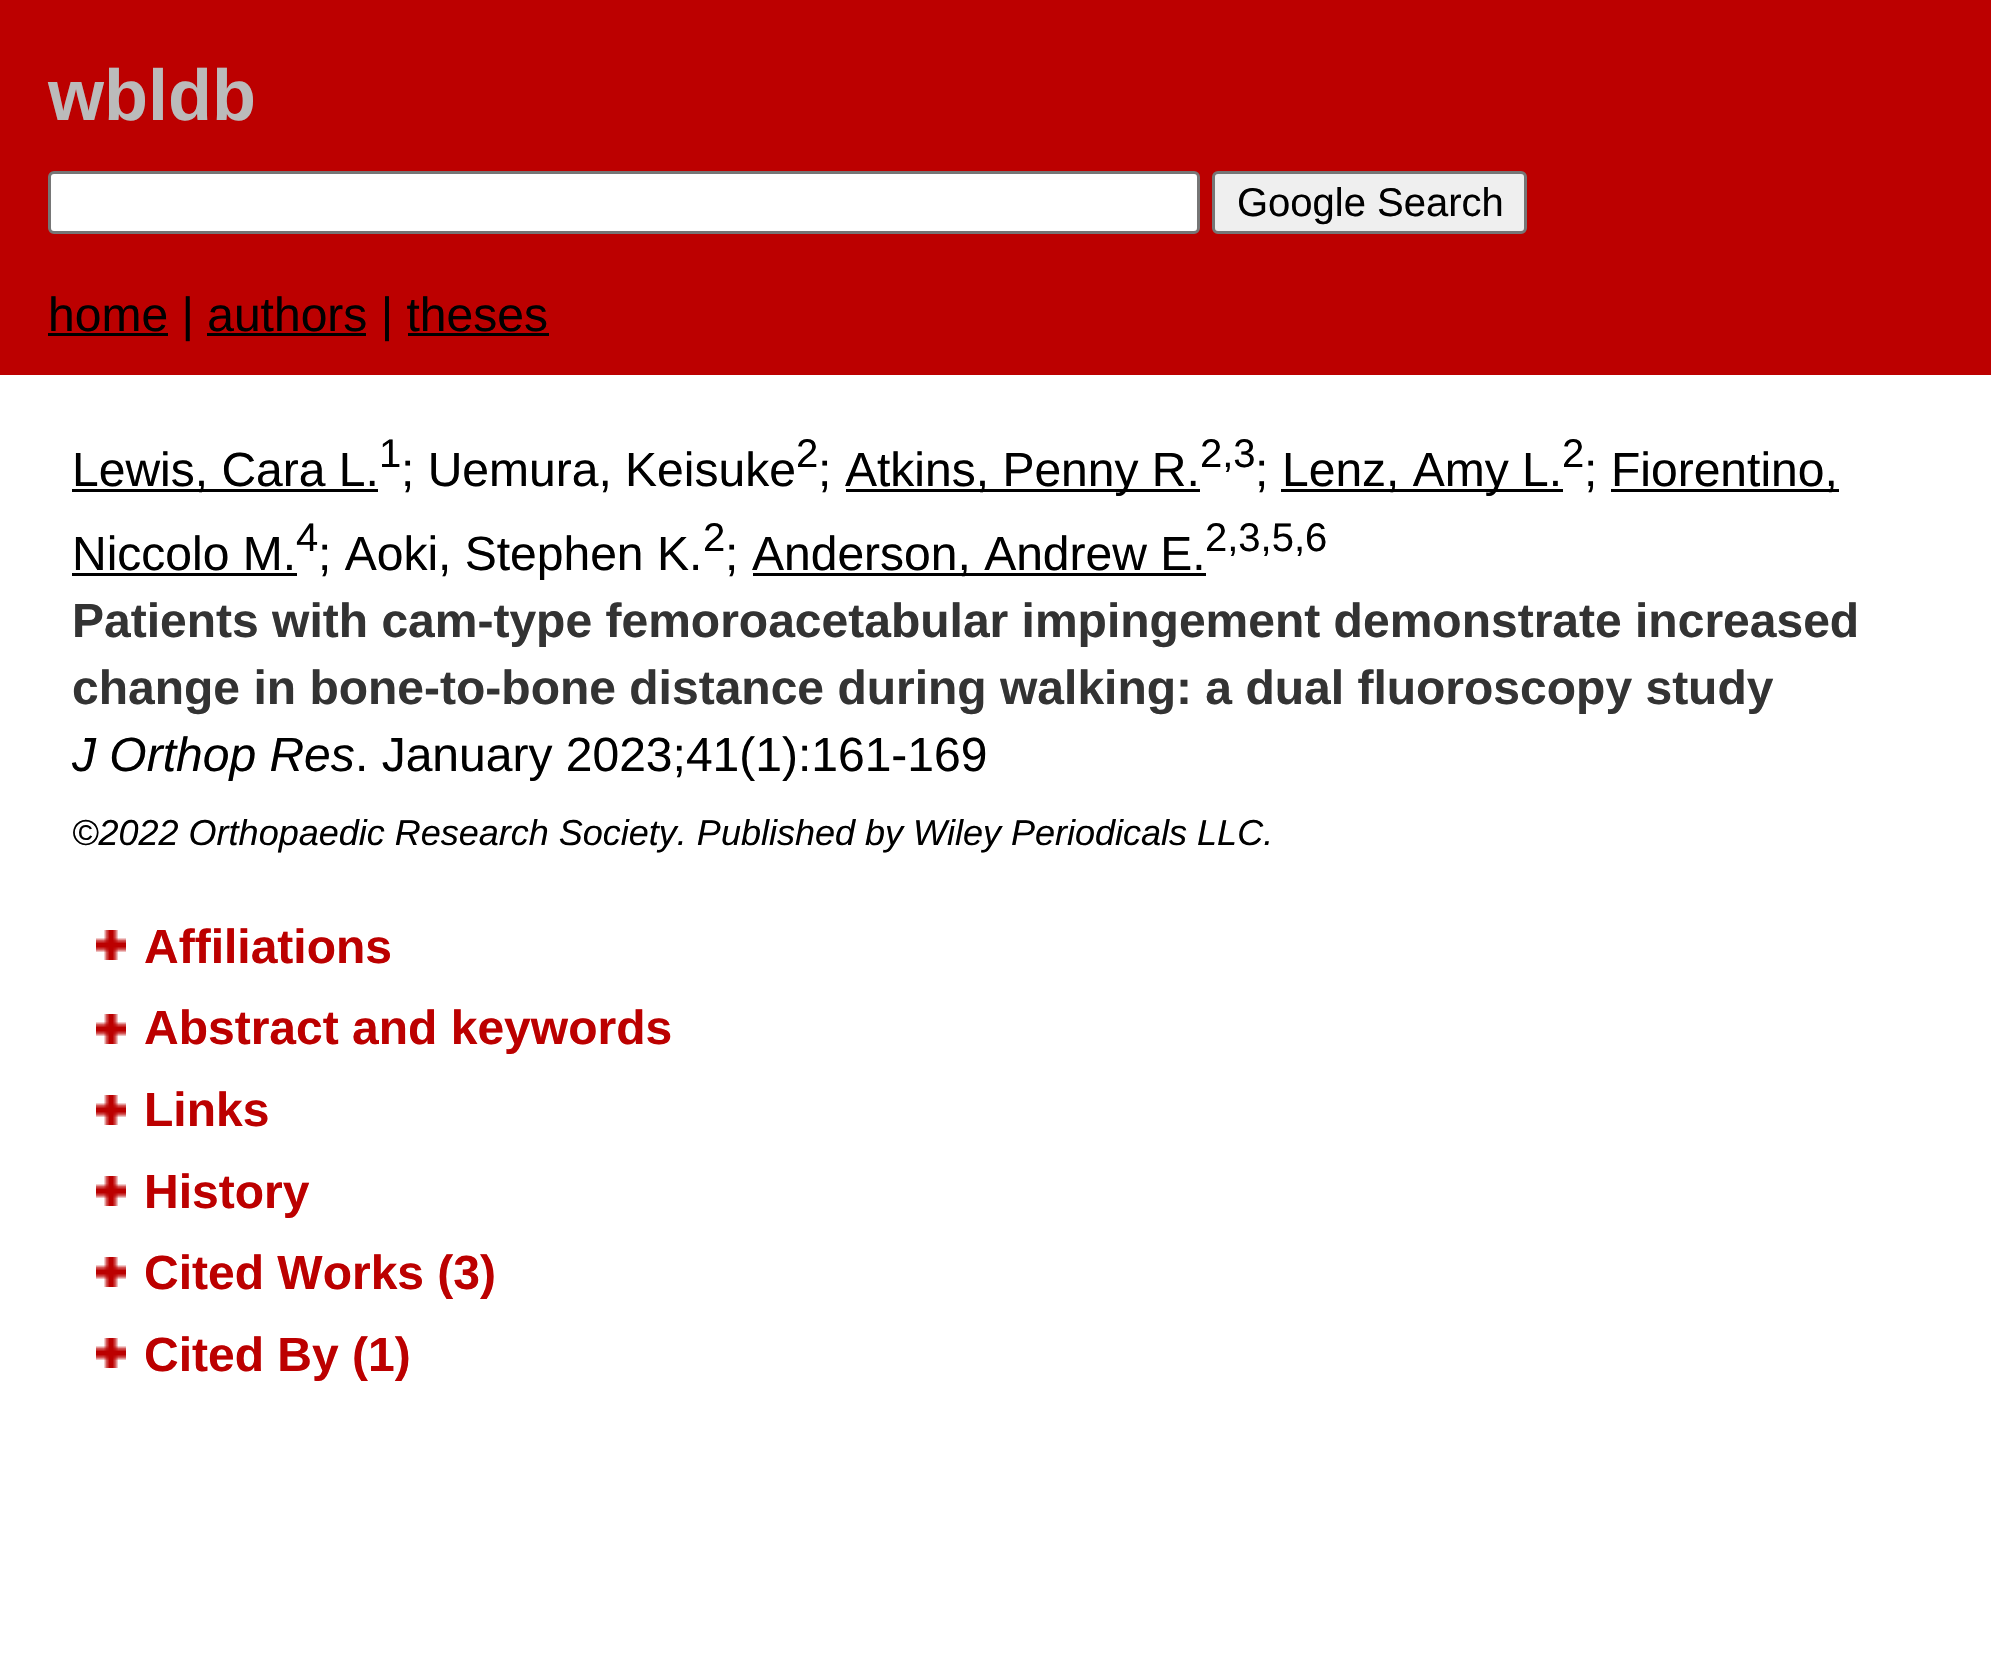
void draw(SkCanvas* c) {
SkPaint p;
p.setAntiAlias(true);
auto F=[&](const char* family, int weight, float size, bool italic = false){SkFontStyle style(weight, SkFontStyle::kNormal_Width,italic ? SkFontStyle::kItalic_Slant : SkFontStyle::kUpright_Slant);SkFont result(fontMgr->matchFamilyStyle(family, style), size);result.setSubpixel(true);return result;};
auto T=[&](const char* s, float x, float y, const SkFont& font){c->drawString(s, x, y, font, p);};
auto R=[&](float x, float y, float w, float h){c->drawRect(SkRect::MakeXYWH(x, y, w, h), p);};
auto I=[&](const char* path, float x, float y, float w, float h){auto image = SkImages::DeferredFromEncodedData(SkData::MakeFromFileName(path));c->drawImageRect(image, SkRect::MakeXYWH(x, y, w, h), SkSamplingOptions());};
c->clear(0xffffffff);
p.setColor(0xffbc0000);
R(0,0,1991,375);
auto f1 = F("Liberation Sans",700,72);
p.setColor(0xffbbbbbb);
T("wbldb",48,120,f1);
p.setColor(0xffffffff);
c->drawRoundRect(SkRect::MakeXYWH(49.5,172.5,1149,60),4.5,4.5,p);
p.setStroke(true);
p.setStrokeWidth(3);
p.setColor(0xff767676);
c->drawRoundRect(SkRect::MakeXYWH(49.5,172.5,1149,60),4.5,4.5,p);
p.setStroke(false);
p.setColor(0xffefefef);
c->drawRoundRect(SkRect::MakeXYWH(1213.5,172.5,312,60),4.5,4.5,p);
p.setStroke(true);
p.setColor(0xff767676);
c->drawRoundRect(SkRect::MakeXYWH(1213.5,172.5,312,60),4.5,4.5,p);
auto f2 = F("Liberation Sans",400,40);
p.setStroke(false);
p.setColor(0xff000000);
T("Google Search",1237,216,f2);
R(48,333,120,3);
auto f3 = F("Liberation Sans",400,48);
T("home | authors | theses",48,331,f3);
R(207,333,159,3);
R(408,333,141,3);
R(72,489,306,3);
T("Lewis, Cara L.",72,486,f3);
T("1",379,467,f2);
T("; Uemura, Keisuke",401,486,f3);
T("2",796,467,f2);
T(";",818,486,f3);
R(846,489,354,3);
T("Atkins, Penny R.",845,486,f3);
T("2,3",1200,467,f2);
T(";",1255,486,f3);
R(1281,489,282,3);
T("Lenz, Amy L.",1282,486,f3);
T("2",1562,467,f2);
T(";",1584,486,f3);
R(1611,489,228,3);
T("Fiorentino,",1611,486,f3);
T("Niccolo M.",72,570,f3);
R(72,573,225,3);
T("4",296,551,f2);
T("; Aoki, Stephen K.",318,570,f3);
T("2",703,551,f2);
T(";",725,570,f3);
R(753,573,453,3);
T("Anderson, Andrew E.",752,570,f3);
T("2,3,5,6",1205,551,f2);
auto f4 = F("Liberation Sans",700,48);
p.setColor(0xff333333);
T("Patients with cam-type femoroacetabular impingement demonstrate increased",72,637,f4);
T("change in bone-to-bone distance during walking: a dual fluoroscopy study",72,704,f4);
auto f5 = F("Liberation Sans",400,48,true);
p.setColor(0xff000000);
T("J Orthop Res",72,771,f5);
T(". January 2023;41(1):161-169",355,771,f3);
auto f6 = F("Liberation Sans",400,36,true);
T("©2022 Orthopaedic Research Society. Published by Wiley Periodicals LLC.",72,845,f6);
I("1.png",96,930,30,30);
p.setColor(0xffbc0000);
T("Affiliations",144,963,f4);
I("1.png",96,1014,30,30);
T("Abstract and keywords",144,1044,f4);
I("1.png",96,1095,30,30);
T("Links",144,1126,f4);
I("1.png",96,1176,30,30);
T("History",144,1208,f4);
I("1.png",96,1257,30,30);
T("Cited Works (3)",144,1289,f4);
I("1.png",96,1338,30,30);
T("Cited By (1)",144,1371,f4);
}
